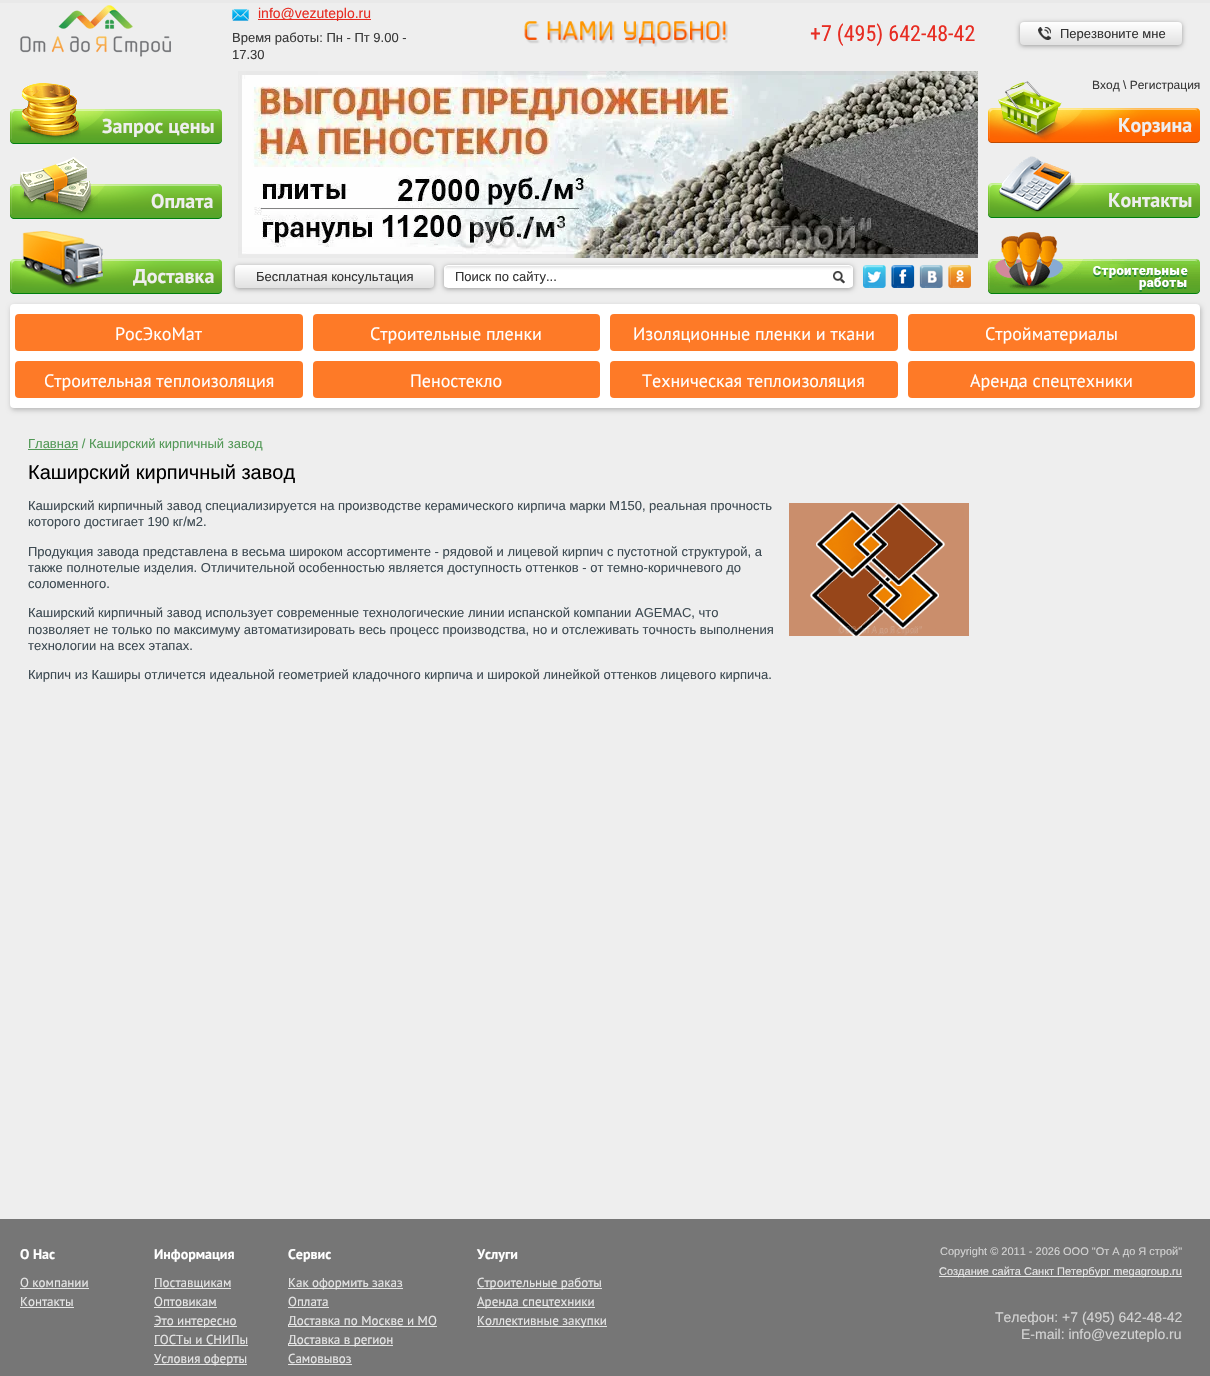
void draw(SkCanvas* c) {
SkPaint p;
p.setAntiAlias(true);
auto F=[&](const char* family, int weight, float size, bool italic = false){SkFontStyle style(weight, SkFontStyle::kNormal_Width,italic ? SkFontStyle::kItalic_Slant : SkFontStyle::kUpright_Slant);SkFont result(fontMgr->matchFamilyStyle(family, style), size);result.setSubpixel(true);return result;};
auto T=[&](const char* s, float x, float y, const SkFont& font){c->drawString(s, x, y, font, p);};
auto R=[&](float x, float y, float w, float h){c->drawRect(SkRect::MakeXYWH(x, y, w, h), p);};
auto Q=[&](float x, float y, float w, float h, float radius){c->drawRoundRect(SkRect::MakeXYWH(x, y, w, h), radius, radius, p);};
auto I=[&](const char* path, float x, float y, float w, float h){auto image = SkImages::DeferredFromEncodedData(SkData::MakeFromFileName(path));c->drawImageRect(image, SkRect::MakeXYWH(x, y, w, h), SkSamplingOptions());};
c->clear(0xffeeeeee);
p.setColor(0xffe9e9e9);
R(0,0,1210,3);
I("1.png",20,5,151,52);
I("2.png",232,9,17,12);
p.setColor(0xffe72c22);
R(258,19,113,1);
auto f1 = F("Liberation Sans",400,14);
T("info@vezuteplo.ru",258,18,f1);
auto f2 = F("Liberation Sans",400,13);
p.setColor(0xff393939);
T("Время работы: Пн - Пт 9.00 -",232,42,f2);
T("17.30",232,59,f2);
I("3.png",524,21,204,26);
auto f3 = F("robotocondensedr",400,22);
p.setColor(0xffe72c22);
T("+7 (495) 642-48-42",810,41,f3);
p.setColor(0x59000000);
p.setMaskFilter(SkMaskFilter::MakeBlur(kNormal_SkBlurStyle, 2.5));
c->drawRoundRect(SkRect::MakeXYWH(1020,23,162,23),4,4,p);
p.setMaskFilter(nullptr);
{
const SkColor colors[] = {0xffffffff,0xffe1e1e1};
const float stops[] = {0,1};
const SkPoint ends[] = {{1101,22}, {1101,45}};
p.setShader(SkGradientShader::MakeLinear(ends, colors, stops, 2, SkTileMode::kClamp));
p.setAlpha(255);
}
Q(1020,22,162,23,4);
I("4.png",1038,27,13,13);
p.setShader(nullptr);
p.setColor(0xff333333);
T("Перезвоните мне",1060,38,f2);
I("5.png",10,109,212,35);
I("6.png",14,83,67,59);
auto f4 = F("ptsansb",700,20);
p.setColor(0xffeeeeee);
T("Запрос цены",102,133,f4);
I("5.png",10,184,212,35);
I("7.png",20,157,78,59);
T("Оплата",151,208,f4);
I("5.png",10,259,212,35);
I("8.png",21,231,82,58);
T("Доставка",133,283,f4);
I("9.png",238,71,740,187);
p.setColor(0x59000000);
p.setMaskFilter(SkMaskFilter::MakeBlur(kNormal_SkBlurStyle, 2.5));
c->drawRoundRect(SkRect::MakeXYWH(235,266,199,23),4,4,p);
p.setMaskFilter(nullptr);
{
const SkColor colors[] = {0xffffffff,0xffe1e1e1};
const float stops[] = {0,1};
const SkPoint ends[] = {{335,265}, {335,288}};
p.setShader(SkGradientShader::MakeLinear(ends, colors, stops, 2, SkTileMode::kClamp));
p.setAlpha(255);
}
Q(235,265,199,23,4);
p.setShader(nullptr);
p.setColor(0xff333333);
T("Бесплатная консультация",256,281,f2);
p.setColor(0x59000000);
p.setMaskFilter(SkMaskFilter::MakeBlur(kNormal_SkBlurStyle, 2.5));
c->drawRoundRect(SkRect::MakeXYWH(444,266,409,23),4,4,p);
p.setMaskFilter(nullptr);
I("10.png",444,266,409,21);
p.setStroke(true);
p.setStrokeWidth(1);
p.setColor(0xffffffff);
c->drawRoundRect(SkRect::MakeXYWH(444.5,265.5,408,22),3.5,3.5,p);
p.setStroke(false);
p.setColor(0xff333333);
T("Поиск по сайту...",455,281,f2);
I("11.png",833,271,12,13);
I("12.png",863,265,23,23);
I("13.png",891,265,24,23);
I("14.png",919,265,24,23);
I("15.png",948,265,23,23);
auto f5 = F("Liberation Sans",400,12);
p.setColor(0xff393939);
T("Вход \\ Регистрация",1092,89,f5);
I("16.png",988,108,212,35);
I("17.png",998,81,64,60);
p.setColor(0xffeeeeee);
T("Корзина",1118,132,f4);
I("5.png",988,183,212,35);
I("18.png",999,156,76,57);
T("Контакты",1108,207,f4);
I("19.png",988,232,212,62);
p.setColor(0x3b000000);
p.setMaskFilter(SkMaskFilter::MakeBlur(kNormal_SkBlurStyle, 2.5));
c->drawRoundRect(SkRect::MakeXYWH(11,306,1190,104),4,4,p);
p.setMaskFilter(nullptr);
p.setColor(0xffffffff);
Q(10,304,1190,104,4);
p.setColor(0xfffe7a27);
Q(15,314,288,37,4);
auto f6 = F("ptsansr",400,18);
p.setColor(0xffffffff);
T("РосЭкоМат",115,340,f6);
p.setColor(0xfffe7a27);
Q(313,314,287,37,4);
p.setColor(0xffffffff);
T("Строительные пленки",370,340,f6);
p.setColor(0xfffe7a27);
Q(610,314,288,37,4);
p.setColor(0xffffffff);
T("Изоляционные пленки и ткани",633,340,f6);
p.setColor(0xfffe7a27);
Q(908,314,287,37,4);
p.setColor(0xffffffff);
T("Стройматериалы",985,340,f6);
p.setColor(0xfffe7a27);
Q(15,361,288,37,4);
p.setColor(0xffffffff);
T("Строительная теплоизоляция",44,387,f6);
p.setColor(0xfffe7a27);
Q(313,361,287,37,4);
p.setColor(0xffffffff);
T("Пеностекло",410,387,f6);
p.setColor(0xfffe7a27);
Q(610,361,288,37,4);
p.setColor(0xffffffff);
T("Техническая теплоизоляция",642,387,f6);
p.setColor(0xfffe7a27);
Q(908,361,287,37,4);
p.setColor(0xffffffff);
T("Аренда спецтехники",970,387,f6);
p.setColor(0xff529856);
R(28,449,50,1);
T("Главная / Каширский кирпичный завод",28,448,f2);
auto f7 = F("Liberation Sans",400,20);
p.setColor(0xff000000);
T("Каширский кирпичный завод",28,479,f7);
p.setColor(0xff3d4a52);
T("Каширский кирпичный завод специализируется на производстве керамического кирпича марки М150, реальная прочность",28,510,f2);
I("20.png",789,503,180,133);
T("которого достигает 190 кг/м2.",28,526,f2);
T("Продукция завода представлена в весьма широком ассортименте - рядовой и лицевой кирпич с пустотной структурой, а",28,556,f2);
T("также полнотелые изделия. Отличительной особенностью является доступность оттенков - от темно-коричневого до",28,572,f2);
T("соломенного.",28,588,f2);
T("Каширский кирпичный завод использует современные технологические линии испанской компании AGEMAC, что",28,617,f2);
T("позволяет не только по максимуму автоматизировать весь процесс производства, но и отслеживать точность выполнения",28,634,f2);
T("технологии на всех этапах.",28,650,f2);
T("Кирпич из Каширы отличется идеальной геометрией кладочного кирпича и широкой линейкой оттенков лицевого кирпича.",28,679,f2);
p.setColor(0xff767676);
R(0,1219,1210,157);
auto f8 = F("ptsansb",700,14);
p.setColor(0xffffffff);
T("О Нас",20,1259,f8);
auto f9 = F("ptsansr",400,13);
p.setColor(0xffe6e6e6);
T("О компании",20,1287,f9);
R(20,1288,69,1);
T("Контакты",20,1306,f9);
R(20,1307,54,1);
p.setColor(0xffffffff);
T("Информация",154,1259,f8);
p.setColor(0xffe6e6e6);
R(154,1288,77,1);
T("Поставщикам",154,1287,f9);
T("Оптовикам",154,1306,f9);
R(154,1307,63,1);
R(154,1326,83,1);
T("Это интересно",154,1325,f9);
T("ГОСТы и СНИПы",154,1344,f9);
R(154,1345,94,1);
R(154,1364,93,1);
T("Условия оферты",154,1363,f9);
p.setColor(0xffffffff);
T("Сервис",288,1259,f8);
p.setColor(0xffe6e6e6);
R(288,1288,115,1);
T("Как оформить заказ",288,1287,f9);
T("Оплата",288,1306,f9);
R(288,1307,41,1);
R(288,1326,149,1);
T("Доставка по Москве и МО",288,1325,f9);
R(288,1345,105,1);
T("Доставка в регион",288,1344,f9);
T("Самовывоз",288,1363,f9);
R(288,1364,64,1);
p.setColor(0xffffffff);
T("Услуги",477,1259,f8);
p.setColor(0xffe6e6e6);
R(477,1288,125,1);
T("Строительные работы",477,1287,f9);
R(477,1307,118,1);
T("Аренда спецтехники",477,1306,f9);
R(477,1326,130,1);
T("Коллективные закупки",477,1325,f9);
auto f10 = F("Liberation Sans",400,11);
p.setColor(0xffd3d3d3);
T("Copyright © 2011 - 2026 OOO \"От А до Я строй\"",940,1255,f10);
p.setColor(0xffe6e6e6);
R(939,1276,243,1);
T("Создание сайта Санкт Петербург megagroup.ru",939,1275,f10);
p.setColor(0xffd3d3d3);
T("Телефон: +7 (495) 642-48-42",995,1322,f1);
T("E-mail: info@vezuteplo.ru",1021,1339,f1);
}
